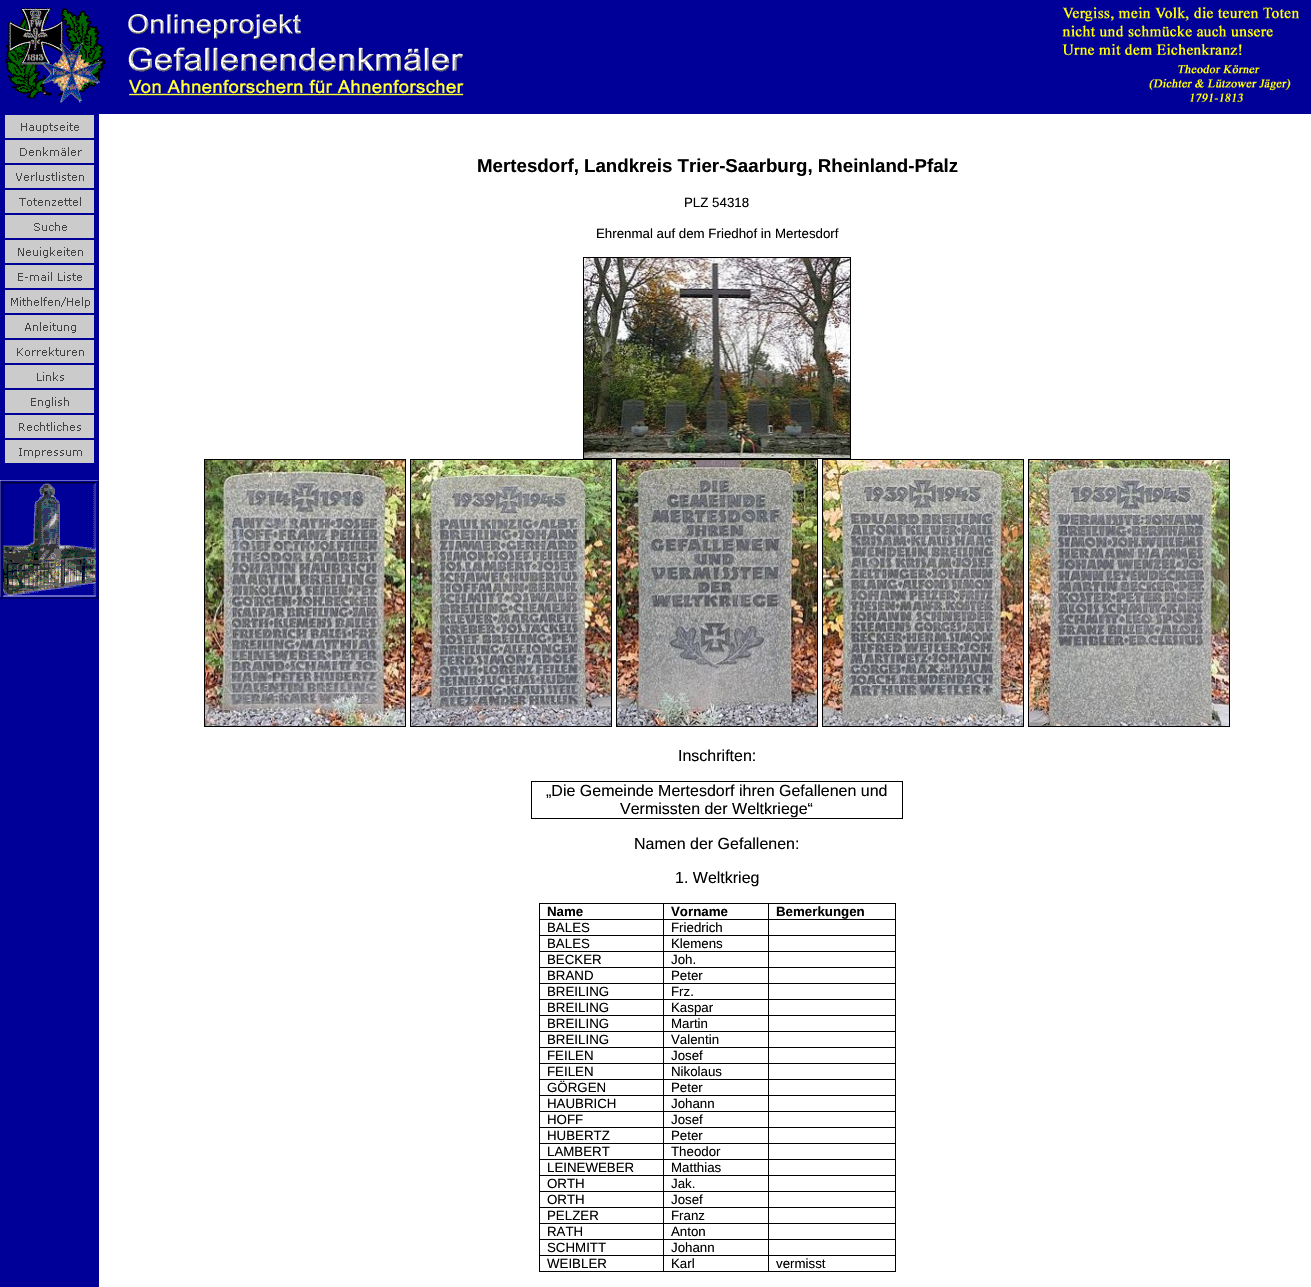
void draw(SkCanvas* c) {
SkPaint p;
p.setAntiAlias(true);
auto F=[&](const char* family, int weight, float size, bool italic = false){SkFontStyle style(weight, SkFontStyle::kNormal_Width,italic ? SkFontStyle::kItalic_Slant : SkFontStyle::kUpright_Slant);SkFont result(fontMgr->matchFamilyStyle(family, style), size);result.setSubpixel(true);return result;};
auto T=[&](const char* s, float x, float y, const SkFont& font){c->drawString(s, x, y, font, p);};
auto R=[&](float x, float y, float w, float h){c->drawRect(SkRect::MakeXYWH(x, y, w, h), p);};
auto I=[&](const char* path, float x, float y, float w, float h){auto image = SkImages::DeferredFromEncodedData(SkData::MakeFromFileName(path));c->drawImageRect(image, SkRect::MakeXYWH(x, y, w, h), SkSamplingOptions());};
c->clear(0xffffffff);
p.setColor(0xff000099);
R(0,0,1311,114);
I("1.png",5,8,100,95);
I("2.png",128,14,336,82);
I("3.png",1062,7,237,95);
R(0,114,99,1173);
I("4.png",5,115,89,23);
I("5.png",5,140,89,23);
I("6.png",5,165,89,23);
I("7.png",5,190,89,23);
I("8.png",5,215,89,23);
I("9.png",5,240,89,23);
I("10.png",5,265,89,23);
I("11.png",5,290,89,23);
I("12.png",5,315,89,23);
I("13.png",5,340,89,23);
I("14.png",5,365,89,23);
I("15.png",5,390,89,23);
I("16.png",5,415,89,23);
I("17.png",5,440,89,23);
I("18.png",0,480,99,119);
auto f1 = F("Liberation Sans",700,18.7);
p.setColor(0xff000000);
T("Mertesdorf, Landkreis Trier-Saarburg, Rheinland-Pfalz",477,172,f1);
auto f2 = F("Liberation Sans",400,13.3);
T("PLZ 54318",684,207,f2);
T("Ehrenmal auf dem Friedhof in Mertesdorf",596,238,f2);
p.setStroke(true);
p.setStrokeWidth(1);
c->drawRect(SkRect::MakeXYWH(583.5,257.5,267,201),p);
I("19.png",584,258,266,200);
c->drawRect(SkRect::MakeXYWH(204.5,459.5,201,267),p);
c->drawRect(SkRect::MakeXYWH(410.5,459.5,201,267),p);
c->drawRect(SkRect::MakeXYWH(616.5,459.5,201,267),p);
c->drawRect(SkRect::MakeXYWH(822.5,459.5,201,267),p);
c->drawRect(SkRect::MakeXYWH(1028.5,459.5,201,267),p);
I("20.png",205,460,200,266);
I("21.png",411,460,200,266);
I("22.png",617,460,200,266);
I("23.png",823,460,200,266);
I("24.png",1029,460,200,266);
auto f3 = F("Liberation Sans",400,16);
p.setStroke(false);
T("Inschriften:",678,761,f3);
R(531,781,372,1);
R(902,781,1,38);
R(531,818,372,1);
R(531,781,1,38);
T("„Die Gemeinde Mertesdorf ihren Gefallenen und",546,796,f3);
T("Vermissten der Weltkriege“",620,814,f3);
T("Namen der Gefallenen:",634,849,f3);
T("1. Weltkrieg",675,883,f3);
R(768,903,128,1);
R(895,919,1,353);
R(895,903,1,17);
R(768,1271,128,1);
R(768,1255,1,17);
R(768,1255,128,1);
R(768,1239,1,17);
R(768,1239,128,1);
R(768,1223,1,17);
R(768,1223,128,1);
R(768,1207,1,17);
R(768,1207,128,1);
R(768,1191,1,17);
R(768,1191,128,1);
R(768,1175,1,17);
R(768,1175,128,1);
R(768,1159,1,17);
R(768,1159,128,1);
R(768,1143,1,17);
R(768,1143,128,1);
R(768,1127,1,17);
R(768,1127,128,1);
R(768,1111,1,17);
R(768,1111,128,1);
R(768,1095,1,17);
R(768,1095,128,1);
R(768,1079,1,17);
R(768,1079,128,1);
R(768,1063,1,17);
R(768,1063,128,1);
R(768,1047,1,17);
R(768,1047,128,1);
R(768,1031,1,17);
R(768,1031,128,1);
R(768,1015,1,17);
R(768,1015,128,1);
R(768,999,1,17);
R(768,999,128,1);
R(768,983,1,17);
R(768,983,128,1);
R(768,967,1,17);
R(768,967,128,1);
R(768,951,1,17);
R(768,951,128,1);
R(768,935,1,17);
R(768,935,128,1);
R(768,919,1,17);
R(768,919,128,1);
R(768,903,1,17);
R(663,903,106,1);
R(663,1271,106,1);
R(663,1255,1,17);
R(663,1255,106,1);
R(663,1239,1,17);
R(663,1239,106,1);
R(663,1223,1,17);
R(663,1223,106,1);
R(663,1207,1,17);
R(663,1207,106,1);
R(663,1191,1,17);
R(663,1191,106,1);
R(663,1175,1,17);
R(663,1175,106,1);
R(663,1159,1,17);
R(663,1159,106,1);
R(663,1143,1,17);
R(663,1143,106,1);
R(663,1127,1,17);
R(663,1127,106,1);
R(663,1111,1,17);
R(663,1111,106,1);
R(663,1095,1,17);
R(663,1095,106,1);
R(663,1079,1,17);
R(663,1079,106,1);
R(663,1063,1,17);
R(663,1063,106,1);
R(663,1047,1,17);
R(663,1047,106,1);
R(663,1031,1,17);
R(663,1031,106,1);
R(663,1015,1,17);
R(663,1015,106,1);
R(663,999,1,17);
R(663,999,106,1);
R(663,983,1,17);
R(663,983,106,1);
R(663,967,1,17);
R(663,967,106,1);
R(663,951,1,17);
R(663,951,106,1);
R(663,935,1,17);
R(663,935,106,1);
R(663,919,1,17);
R(663,919,106,1);
R(663,903,1,17);
R(539,903,125,1);
R(539,1271,125,1);
R(539,1255,1,17);
R(539,1255,125,1);
R(539,1239,1,17);
R(539,1239,125,1);
R(539,1223,1,17);
R(539,1223,125,1);
R(539,1207,1,17);
R(539,1207,125,1);
R(539,1191,1,17);
R(539,1191,125,1);
R(539,1175,1,17);
R(539,1175,125,1);
R(539,1159,1,17);
R(539,1159,125,1);
R(539,1143,1,17);
R(539,1143,125,1);
R(539,1127,1,17);
R(539,1127,125,1);
R(539,1111,1,17);
R(539,1111,125,1);
R(539,1095,1,17);
R(539,1095,125,1);
R(539,1079,1,17);
R(539,1079,125,1);
R(539,1063,1,17);
R(539,1063,125,1);
R(539,1047,1,17);
R(539,1047,125,1);
R(539,1031,1,17);
R(539,1031,125,1);
R(539,1015,1,17);
R(539,1015,125,1);
R(539,999,1,17);
R(539,999,125,1);
R(539,983,1,17);
R(539,983,125,1);
R(539,967,1,17);
R(539,967,125,1);
R(539,951,1,17);
R(539,951,125,1);
R(539,935,1,17);
R(539,935,125,1);
R(539,919,1,17);
R(539,919,125,1);
R(539,903,1,17);
auto f4 = F("Liberation Sans",700,13.3);
T("Name",547,916,f4);
T("Vorname",671,916,f4);
T("Bemerkungen",776,916,f4);
T("BALES",547,932,f2);
T("Friedrich",671,932,f2);
T("BALES",547,948,f2);
T("Klemens",671,948,f2);
T("BECKER",547,964,f2);
T("Joh.",671,964,f2);
T("BRAND",547,980,f2);
T("Peter",671,980,f2);
T("BREILING",547,996,f2);
T("Frz.",671,996,f2);
T("BREILING",547,1012,f2);
T("Kaspar",671,1012,f2);
T("BREILING",547,1028,f2);
T("Martin",671,1028,f2);
T("BREILING",547,1044,f2);
T("Valentin",671,1044,f2);
T("FEILEN",547,1060,f2);
T("Josef",671,1060,f2);
T("FEILEN",547,1076,f2);
T("Nikolaus",671,1076,f2);
T("GÖRGEN",547,1092,f2);
T("Peter",671,1092,f2);
T("HAUBRICH",547,1108,f2);
T("Johann",671,1108,f2);
T("HOFF",547,1124,f2);
T("Josef",671,1124,f2);
T("HUBERTZ",547,1140,f2);
T("Peter",671,1140,f2);
T("LAMBERT",547,1156,f2);
T("Theodor",671,1156,f2);
T("LEINEWEBER",547,1172,f2);
T("Matthias",671,1172,f2);
T("ORTH",547,1188,f2);
T("Jak.",671,1188,f2);
T("ORTH",547,1204,f2);
T("Josef",671,1204,f2);
T("PELZER",547,1220,f2);
T("Franz",671,1220,f2);
T("RATH",547,1236,f2);
T("Anton",671,1236,f2);
T("SCHMITT",547,1252,f2);
T("Johann",671,1252,f2);
T("WEIBLER",547,1268,f2);
T("Karl",671,1268,f2);
T("vermisst",776,1268,f2);
}
